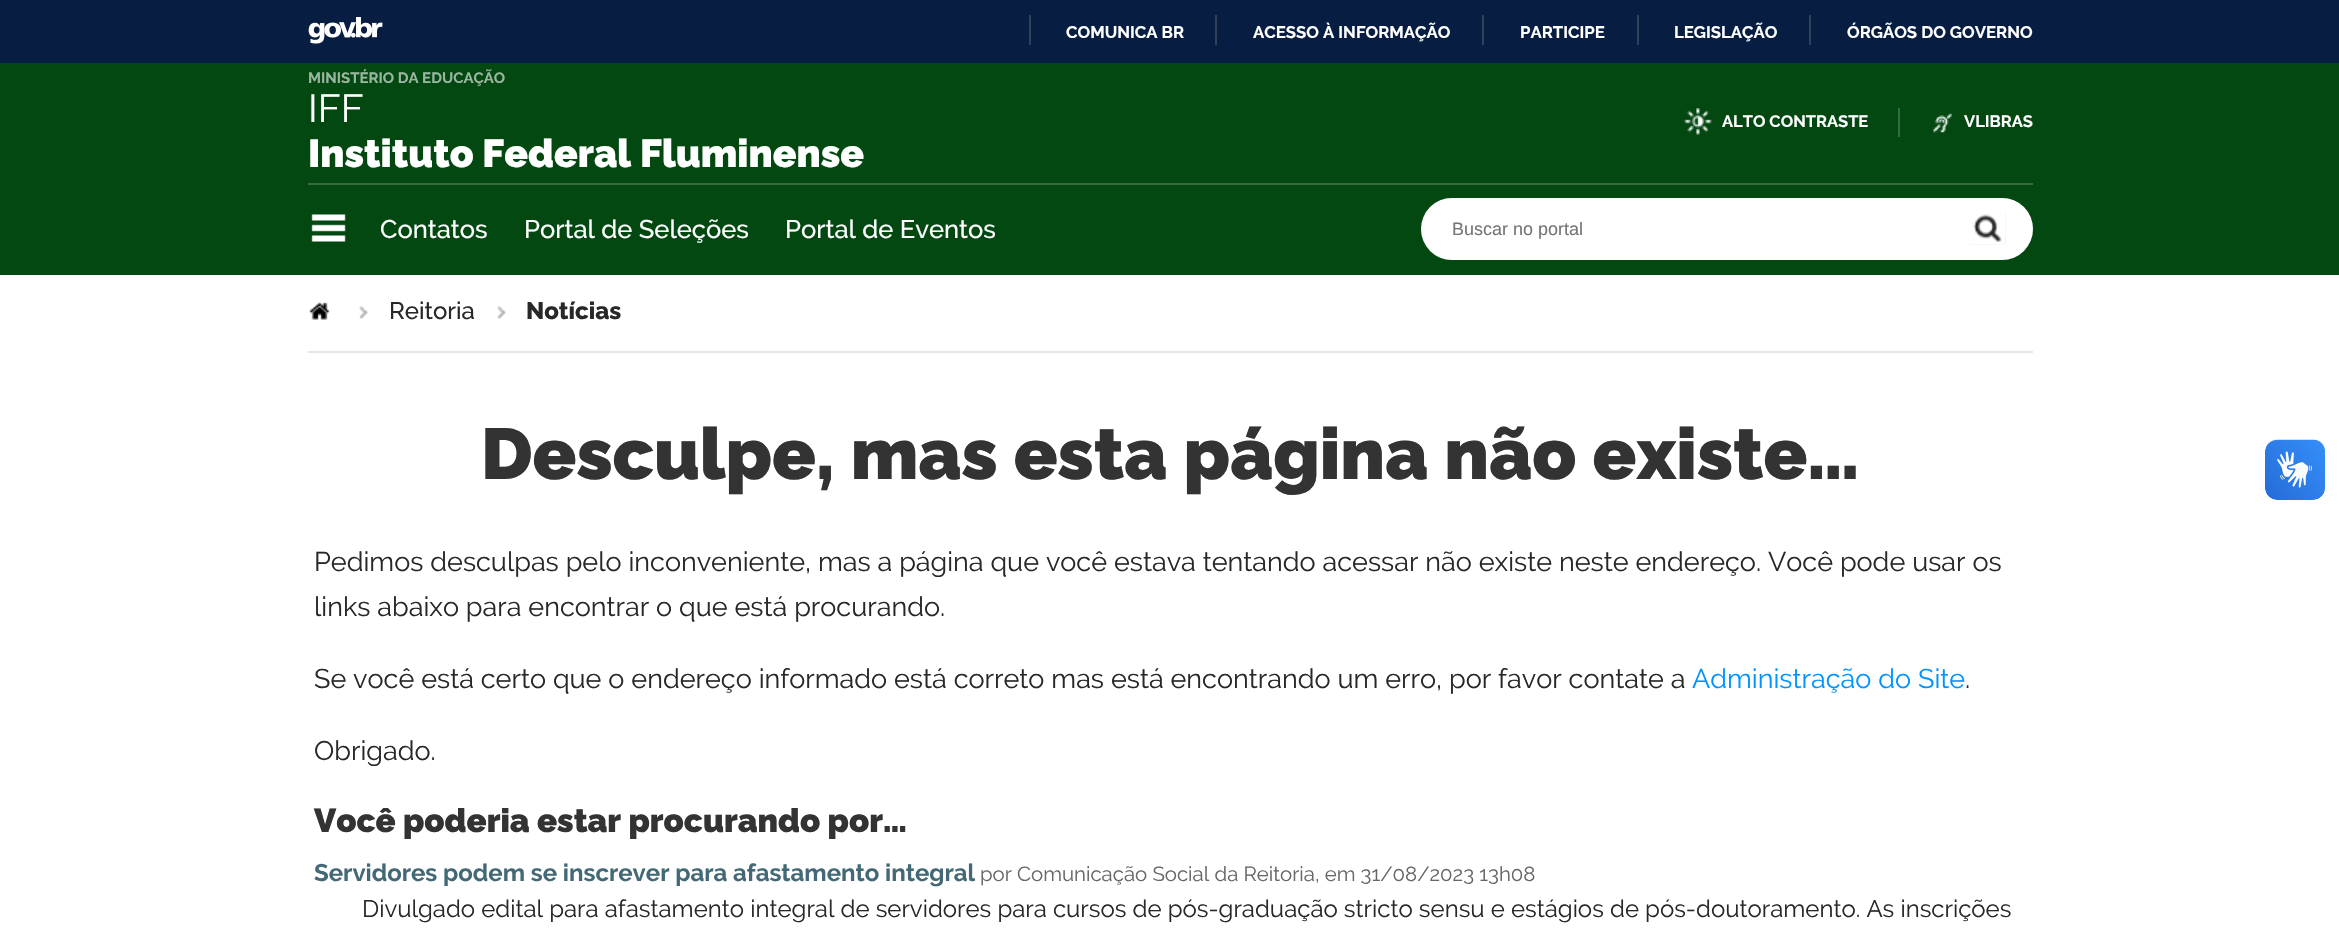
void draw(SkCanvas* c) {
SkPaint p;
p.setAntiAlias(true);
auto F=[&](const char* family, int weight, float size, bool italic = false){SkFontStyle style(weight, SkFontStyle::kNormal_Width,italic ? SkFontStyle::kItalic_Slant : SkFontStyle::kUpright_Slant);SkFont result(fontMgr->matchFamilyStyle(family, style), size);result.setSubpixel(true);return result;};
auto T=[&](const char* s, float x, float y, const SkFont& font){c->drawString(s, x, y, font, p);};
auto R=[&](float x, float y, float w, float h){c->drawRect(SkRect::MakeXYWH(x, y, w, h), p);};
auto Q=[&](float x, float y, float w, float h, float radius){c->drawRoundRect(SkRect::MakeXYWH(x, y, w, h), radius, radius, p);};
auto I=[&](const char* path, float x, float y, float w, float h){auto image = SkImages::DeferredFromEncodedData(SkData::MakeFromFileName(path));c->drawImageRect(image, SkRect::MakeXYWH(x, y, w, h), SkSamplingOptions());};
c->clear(0xffffffff);
p.setColor(0xff071d41);
R(0,0,2339,63);
I("1.png",308,17,75,27);
p.setColor(0xff32425b);
R(1029,15,2,30);
auto f1 = F("Raleway",700,16.75);
p.setColor(0xffffffff);
T("COMUNICA BR",1066,38,f1);
p.setColor(0xff32425b);
R(1215,15,2,30);
p.setColor(0xffffffff);
T("ACESSO À INFORMAÇÃO",1253,38,f1);
p.setColor(0xff32425b);
R(1482,15,2,30);
p.setColor(0xffffffff);
T("PARTICIPE",1520,38,f1);
p.setColor(0xff32425b);
R(1637,15,2,30);
p.setColor(0xffffffff);
T("LEGISLAÇÃO",1674,38,f1);
p.setColor(0xff32425b);
R(1809,15,2,30);
p.setColor(0xffffffff);
T("ÓRGÃOS DO GOVERNO",1847,38,f1);
p.setColor(0xff034811);
R(0,63,2339,212);
p.setColor(0xff356d41);
R(308,183,1725,2);
auto f2 = F("Raleway",700,15);
p.setColor(0xff9ab6a0);
T("MINISTÉRIO DA EDUCAÇÃO",308,83,f2);
auto f3 = F("Raleway",400,39);
p.setColor(0xffffffff);
T("IFF",308,122,f3);
auto f4 = F("Raleway",900,39);
T("Instituto Federal Fluminense",308,167,f4);
p.setColor(0xff356d41);
R(1898,108,2,29);
I("2.png",1684,108,28,27);
auto f5 = F("Raleway",700,16.5);
p.setColor(0xffffffff);
T("ALTO CONTRASTE",1722,127,f5);
I("3.png",1933,113,19,20);
T("VLIBRAS",1964,127,f5);
I("4.png",311,214,35,28);
auto f6 = F("Raleway",500,25.5);
T("Contatos",380,238,f6);
T("Portal de Seleções",524,238,f6);
T("Portal de Eventos",785,238,f6);
Q(1421,198,612,62,31);
p.setStroke(true);
p.setStrokeWidth(2);
p.setColor(0x33ffffff);
c->drawRoundRect(SkRect::MakeXYWH(1422,199,610,60),30,30,p);
auto f7 = F("Liberation Sans",400,18);
p.setStroke(false);
p.setColor(0xff757575);
T("Buscar no portal",1452,235,f7);
p.setColor(0xffefefef);
R(1970,212,36,33);
I("5.png",1970,212,36,33);
p.setColor(0xffe6e6e6);
R(308,351,1725,2);
I("6.png",309,302,22,18);
I("7.png",359,306,9,13);
auto f8 = F("Raleway",500,24);
p.setColor(0xff282828);
T("Reitoria",389,319,f8);
I("7.png",497,306,9,13);
auto f9 = F("Raleway",800,24);
T("Notícias",526,319,f9);
auto f10 = F("Raleway",900,72);
p.setColor(0xff333333);
T("Desculpe, mas esta página não existe…",481,479,f10);
auto f11 = F("Raleway",400,27);
p.setColor(0xff282828);
T("Pedimos desculpas pelo inconveniente, mas a página que você estava tentando acessar não existe neste endereço. Você pode usar os",314,571,f11);
T("links abaixo para encontrar o que está procurando.",314,616,f11);
T("Se você está certo que o endereço informado está correto mas está encontrando um erro, por favor contate a",314,688,f11);
p.setColor(0xff0094ff);
T("Administração do Site",1692,688,f11);
p.setColor(0xff282828);
T(".",1965,688,f11);
T("Obrigado.",314,760,f11);
auto f12 = F("Raleway",900,33);
p.setColor(0xff333333);
T("Você poderia estar procurando por…",314,832,f12);
auto f13 = F("Raleway",700,24);
p.setColor(0xff436976);
T("Servidores podem se inscrever para afastamento integral",314,881,f13);
auto f14 = F("Raleway",400,20.4);
p.setColor(0xff666666);
T("por Comunicação Social da Reitoria, em 31/08/2023 13h08",980,881,f14);
auto f15 = F("Raleway",400,24);
p.setColor(0xff282828);
T("Divulgado edital para afastamento integral de servidores para cursos de pós-graduação stricto sensu e estágios de pós-doutoramento. As inscrições",362,917,f15);
I("8.png",2265,439,60,61);
I("9.png",2265,440,60,60);
}
